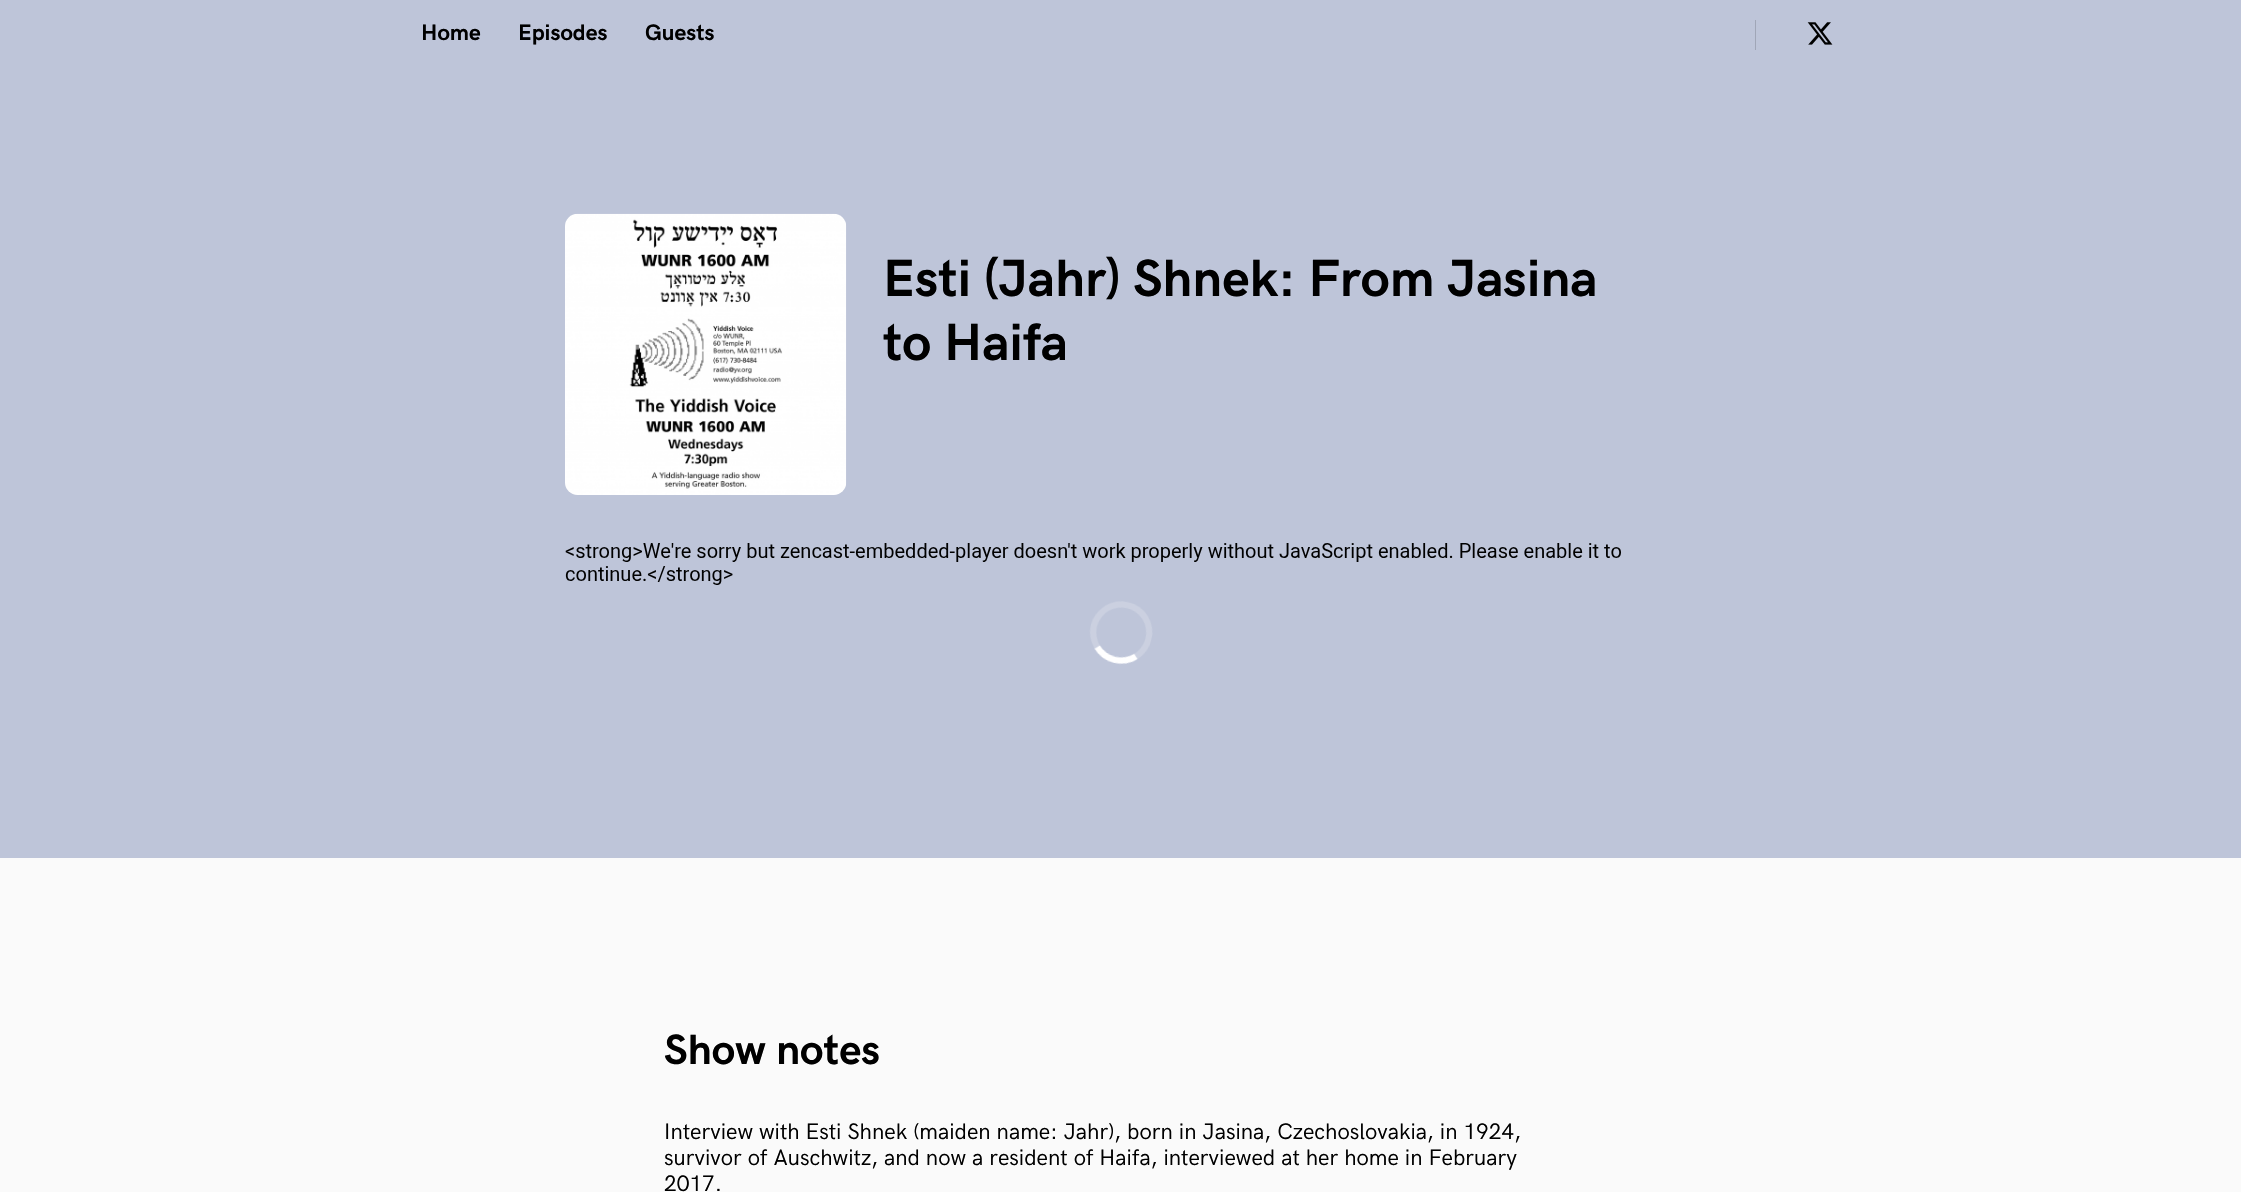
void draw(SkCanvas* c) {
SkPaint p;
p.setAntiAlias(true);
auto F=[&](const char* family, int weight, float size, bool italic = false){SkFontStyle style(weight, SkFontStyle::kNormal_Width,italic ? SkFontStyle::kItalic_Slant : SkFontStyle::kUpright_Slant);SkFont result(fontMgr->matchFamilyStyle(family, style), size);result.setSubpixel(true);return result;};
auto T=[&](const char* s, float x, float y, const SkFont& font){c->drawString(s, x, y, font, p);};
auto R=[&](float x, float y, float w, float h){c->drawRect(SkRect::MakeXYWH(x, y, w, h), p);};
auto I=[&](const char* path, float x, float y, float w, float h){auto image = SkImages::DeferredFromEncodedData(SkData::MakeFromFileName(path));c->drawImageRect(image, SkRect::MakeXYWH(x, y, w, h), SkSamplingOptions());};
c->clear(0xfffafafa);
p.setColor(0xffbec5d9);
R(0,0,2241,858);
auto f1 = F("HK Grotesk",700,22.5);
p.setColor(0xff000000);
T("Home",421,40,f1);
T("Episodes",518,40,f1);
T("Guests",645,40,f1);
p.setColor(0xffa0a6b7);
R(1755,20,1,30);
I("1.png",1807,22,26,23);
I("2.png",565,213,282,282);
auto f2 = F("HK Grotesk",700,52.5);
p.setColor(0xff000000);
T("Esti (Jahr) Shnek: From Jasina",883,296,f2);
T("to Haifa",883,360,f2);
I("3.png",565,543,1056,122);
auto f3 = F("HK Grotesk",700,42.5);
T("Show notes",664,1064,f3);
auto f4 = F("HK Grotesk",400,22.5);
T("Interview with Esti Shnek (maiden name: Jahr), born in Jasina, Czechoslovakia, in 1924,",664,1139,f4);
T("survivor of Auschwitz, and now a resident of Haifa, interviewed at her home in February",664,1165,f4);
T("2017.",664,1191,f4);
}
